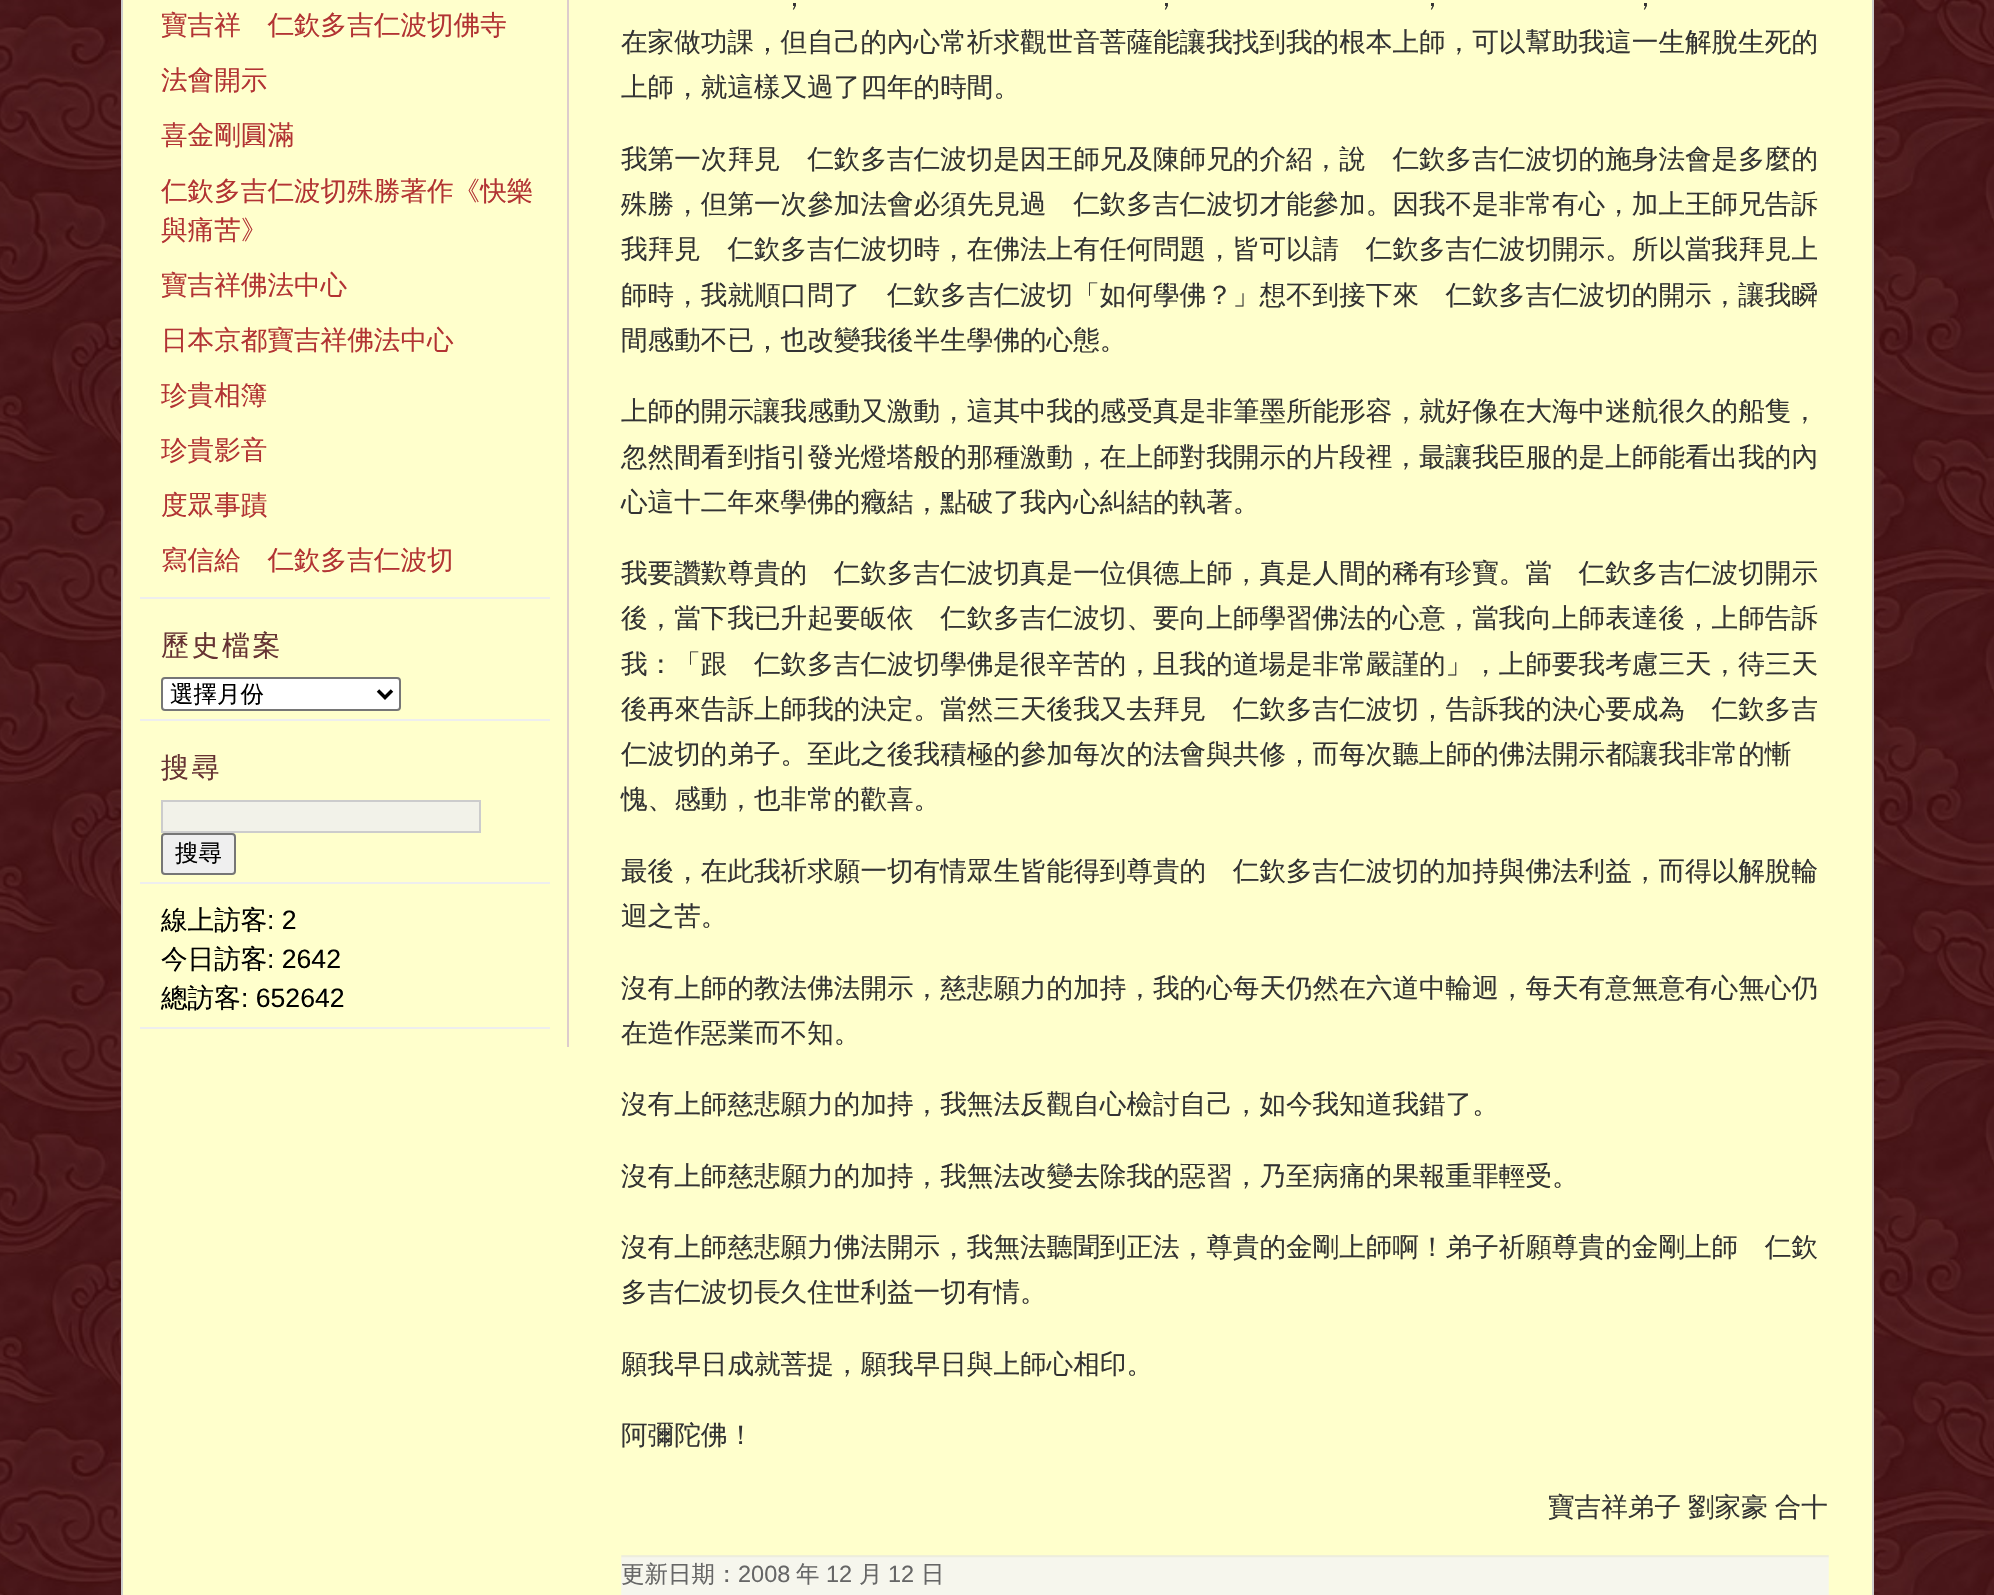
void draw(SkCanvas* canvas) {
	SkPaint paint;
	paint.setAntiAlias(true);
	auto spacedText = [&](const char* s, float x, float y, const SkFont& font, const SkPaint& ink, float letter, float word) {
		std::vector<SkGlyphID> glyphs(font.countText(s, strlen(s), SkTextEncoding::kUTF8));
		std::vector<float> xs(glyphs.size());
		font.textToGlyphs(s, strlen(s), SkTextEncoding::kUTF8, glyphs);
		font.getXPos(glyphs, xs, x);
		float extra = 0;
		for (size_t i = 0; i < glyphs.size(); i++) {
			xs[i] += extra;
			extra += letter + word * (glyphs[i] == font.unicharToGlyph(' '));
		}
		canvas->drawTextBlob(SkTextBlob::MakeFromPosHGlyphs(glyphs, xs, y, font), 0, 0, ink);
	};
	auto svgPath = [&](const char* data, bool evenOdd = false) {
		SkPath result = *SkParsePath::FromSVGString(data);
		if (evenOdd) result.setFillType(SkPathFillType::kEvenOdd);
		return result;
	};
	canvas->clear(0xffffffff);
	canvas->drawImageRect(SkImages::DeferredFromEncodedData(SkData::MakeFromFileName("img1.png")), SkRect::MakeXYWH(0, 0, 1994, 1595), SkSamplingOptions());
	paint.setColor(0xffffffcc);
	canvas->drawRect(SkRect::MakeXYWH(122, -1, 1751, 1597), paint);
	paint.setStroke(true);
	paint.setStrokeWidth(2);
	paint.setColor(0xffcccccc);
	canvas->drawRect(SkRect::MakeXYWH(122, -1, 1751, 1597), paint);
	paint.setStroke(false);
	paint.setColor(0xffddcccc);
	canvas->drawRect(SkRect::MakeXYWH(567, 0, 2, 1047), paint);
	paint.setColor(0xffeeeeee);
	canvas->drawRect(SkRect::MakeXYWH(140, 597, 410, 2), paint);
	SkFont f1(fontMgr->matchFamilyStyle("WenQuanYi Zen Hei", SkFontStyle(500, SkFontStyle::kNormal_Width, SkFontStyle::kUpright_Slant)), 26.6);
	f1.setSubpixel(true);
	paint.setColor(0xffb23333);
	canvas->drawString("寶吉祥　仁欽多吉仁波切佛寺", 161, 34, f1, paint);
	canvas->drawString("法會開示", 161, 89, f1, paint);
	canvas->drawString("喜金剛圓滿", 161, 144, f1, paint);
	canvas->drawString("仁欽多吉仁波切殊勝著作《快樂", 161, 200, f1, paint);
	canvas->drawString("與痛苦》", 161, 239, f1, paint);
	canvas->drawString("寶吉祥佛法中心", 161, 294, f1, paint);
	canvas->drawString("日本京都寶吉祥佛法中心", 161, 349, f1, paint);
	canvas->drawString("珍貴相簿", 161, 404, f1, paint);
	canvas->drawString("珍貴影音", 161, 459, f1, paint);
	canvas->drawString("度眾事蹟", 161, 514, f1, paint);
	canvas->drawString("寫信給　仁欽多吉仁波切", 161, 569, f1, paint);
	paint.setColor(0xffeeeeee);
	canvas->drawRect(SkRect::MakeXYWH(140, 719, 410, 2), paint);
	SkFont f2(fontMgr->matchFamilyStyle("WenQuanYi Zen Hei", SkFontStyle(500, SkFontStyle::kNormal_Width, SkFontStyle::kUpright_Slant)), 28);
	f2.setSubpixel(true);
	paint.setColor(0xff663333);
	spacedText("歷史檔案", 161, 655, f2, paint, 2.5, 0);
	paint.setColor(0xffffffff);
	canvas->drawRoundRect(SkRect::MakeXYWH(162, 678, 238, 32), 3, 3, paint);
	paint.setStroke(true);
	paint.setColor(0xff767676);
	canvas->drawRoundRect(SkRect::MakeXYWH(162, 678, 238, 32), 3, 3, paint);
	paint.setStrokeWidth(3.5);
	paint.setColor(0xff000000);
	canvas->drawPath(svgPath("M378 690.5L385 697.5L392 690.5"), paint);
	SkFont f3(fontMgr->matchFamilyStyle("WenQuanYi Zen Hei", SkFontStyle(500, SkFontStyle::kNormal_Width, SkFontStyle::kUpright_Slant)), 23.5);
	f3.setSubpixel(true);
	paint.setStroke(false);
	canvas->drawString("選擇月份", 170, 702, f3, paint);
	paint.setColor(0xffeeeeee);
	canvas->drawRect(SkRect::MakeXYWH(140, 882, 410, 2), paint);
	paint.setColor(0xff663333);
	spacedText("搜尋", 161, 777, f2, paint, 2.5, 0);
	paint.setColor(0xfff2f2e9);
	canvas->drawRect(SkRect::MakeXYWH(162, 801, 318, 31), paint);
	paint.setStroke(true);
	paint.setStrokeWidth(2);
	paint.setColor(0xffcccccc);
	canvas->drawRect(SkRect::MakeXYWH(162, 801, 318, 31), paint);
	paint.setStroke(false);
	paint.setColor(0xffefefef);
	canvas->drawRoundRect(SkRect::MakeXYWH(162, 834, 73, 40), 3, 3, paint);
	paint.setStroke(true);
	paint.setColor(0xff767676);
	canvas->drawRoundRect(SkRect::MakeXYWH(162, 834, 73, 40), 3, 3, paint);
	paint.setStroke(false);
	paint.setColor(0xff000000);
	canvas->drawString("搜尋", 175, 861, f3, paint);
	paint.setColor(0xffeeeeee);
	canvas->drawRect(SkRect::MakeXYWH(140, 1027, 410, 2), paint);
	paint.setColor(0xff000000);
	canvas->drawString("線上訪客", 161, 929, f1, paint);
	SkFont f4(fontMgr->matchFamilyStyle("Liberation Sans", SkFontStyle::Normal()), 26.6);
	f4.setSubpixel(true);
	canvas->drawString(": 2", 267, 929, f4, paint);
	canvas->drawString("今日訪客", 161, 968, f1, paint);
	canvas->drawString(": 2642", 267, 968, f4, paint);
	canvas->drawString("總訪客", 161, 1007, f1, paint);
	canvas->drawString(": 652642", 241, 1007, f4, paint);
	paint.setColor(0xff333333);
	canvas->drawString("，", 781, 6, f1, paint);
	canvas->drawString("，", 1153, 6, f1, paint);
	canvas->drawString("，", 1419, 6, f1, paint);
	canvas->drawString("，", 1632, 6, f1, paint);
	canvas->drawString("在家做功課，但自己的內心常祈求觀世音菩薩能讓我找到我的根本上師，可以幫助我這一生解脫生死的", 621, 51, f1, paint);
	canvas->drawString("上師，就這樣又過了四年的時間。", 621, 96, f1, paint);
	canvas->drawString("我第一次拜見　仁欽多吉仁波切是因王師兄及陳師兄的介紹，說　仁欽多吉仁波切的施身法會是多麼的", 621, 168, f1, paint);
	canvas->drawString("殊勝，但第一次參加法會必須先見過　仁欽多吉仁波切才能參加。因我不是非常有心，加上王師兄告訴", 621, 213, f1, paint);
	canvas->drawString("我拜見　仁欽多吉仁波切時，在佛法上有任何問題，皆可以請　仁欽多吉仁波切開示。所以當我拜見上", 621, 258, f1, paint);
	canvas->drawString("師時，我就順口問了　仁欽多吉仁波切「如何學佛？」想不到接下來　仁欽多吉仁波切的開示，讓我瞬", 621, 304, f1, paint);
	canvas->drawString("間感動不已，也改變我後半生學佛的心態。", 621, 349, f1, paint);
	canvas->drawString("上師的開示讓我感動又激動，這其中我的感受真是非筆墨所能形容，就好像在大海中迷航很久的船隻，", 621, 420, f1, paint);
	canvas->drawString("忽然間看到指引發光燈塔般的那種激動，在上師對我開示的片段裡，最讓我臣服的是上師能看出我的內", 621, 466, f1, paint);
	canvas->drawString("心這十二年來學佛的癥結，點破了我內心糾結的執著。", 621, 511, f1, paint);
	canvas->drawString("我要讚歎尊貴的　仁欽多吉仁波切真是一位俱德上師，真是人間的稀有珍寶。當　仁欽多吉仁波切開示", 621, 582, f1, paint);
	canvas->drawString("後，當下我已升起要皈依　仁欽多吉仁波切、要向上師學習佛法的心意，當我向上師表達後，上師告訴", 621, 627, f1, paint);
	canvas->drawString("我：「跟　仁欽多吉仁波切學佛是很辛苦的，且我的道場是非常嚴謹的」，上師要我考慮三天，待三天", 621, 673, f1, paint);
	canvas->drawString("後再來告訴上師我的決定。當然三天後我又去拜見　仁欽多吉仁波切，告訴我的決心要成為　仁欽多吉", 621, 718, f1, paint);
	canvas->drawString("仁波切的弟子。至此之後我積極的參加每次的法會與共修，而每次聽上師的佛法開示都讓我非常的慚", 621, 763, f1, paint);
	canvas->drawString("愧、感動，也非常的歡喜。", 621, 808, f1, paint);
	canvas->drawString("最後，在此我祈求願一切有情眾生皆能得到尊貴的　仁欽多吉仁波切的加持與佛法利益，而得以解脫輪", 621, 880, f1, paint);
	canvas->drawString("迴之苦。", 621, 925, f1, paint);
	canvas->drawString("沒有上師的教法佛法開示，慈悲願力的加持，我的心每天仍然在六道中輪迥，每天有意無意有心無心仍", 621, 997, f1, paint);
	canvas->drawString("在造作惡業而不知。", 621, 1042, f1, paint);
	canvas->drawString("沒有上師慈悲願力的加持，我無法反觀自心檢討自己，如今我知道我錯了。", 621, 1113, f1, paint);
	canvas->drawString("沒有上師慈悲願力的加持，我無法改變去除我的惡習，乃至病痛的果報重罪輕受。", 621, 1185, f1, paint);
	canvas->drawString("沒有上師慈悲願力佛法開示，我無法聽聞到正法，尊貴的金剛上師啊！弟子祈願尊貴的金剛上師　仁欽", 621, 1256, f1, paint);
	canvas->drawString("多吉仁波切長久住世利益一切有情。", 621, 1301, f1, paint);
	canvas->drawString("願我早日成就菩提，願我早日與上師心相印。", 621, 1373, f1, paint);
	canvas->drawString("阿彌陀佛！", 621, 1444, f1, paint);
	spacedText("寶吉祥弟子 劉家豪 合十", 1548, 1516, f1, paint, 0, -1);
	canvas->drawImageRect(SkImages::DeferredFromEncodedData(SkData::MakeFromFileName("img2.png")), SkRect::MakeXYWH(621, 1555, 1208, 40), SkSamplingOptions());
	paint.setColor(0xff666666);
	canvas->drawString("更新日期：", 621, 1582, f3, paint);
	SkFont f5(fontMgr->matchFamilyStyle("Liberation Sans", SkFontStyle::Normal()), 23.5);
	f5.setSubpixel(true);
	canvas->drawString("2008", 738, 1582, f5, paint);
	canvas->drawString("年", 796, 1582, f3, paint);
	canvas->drawString("12", 826, 1582, f5, paint);
	canvas->drawString("月", 859, 1582, f3, paint);
	canvas->drawString("12", 888, 1582, f5, paint);
	canvas->drawString("日", 921, 1582, f3, paint);
}
